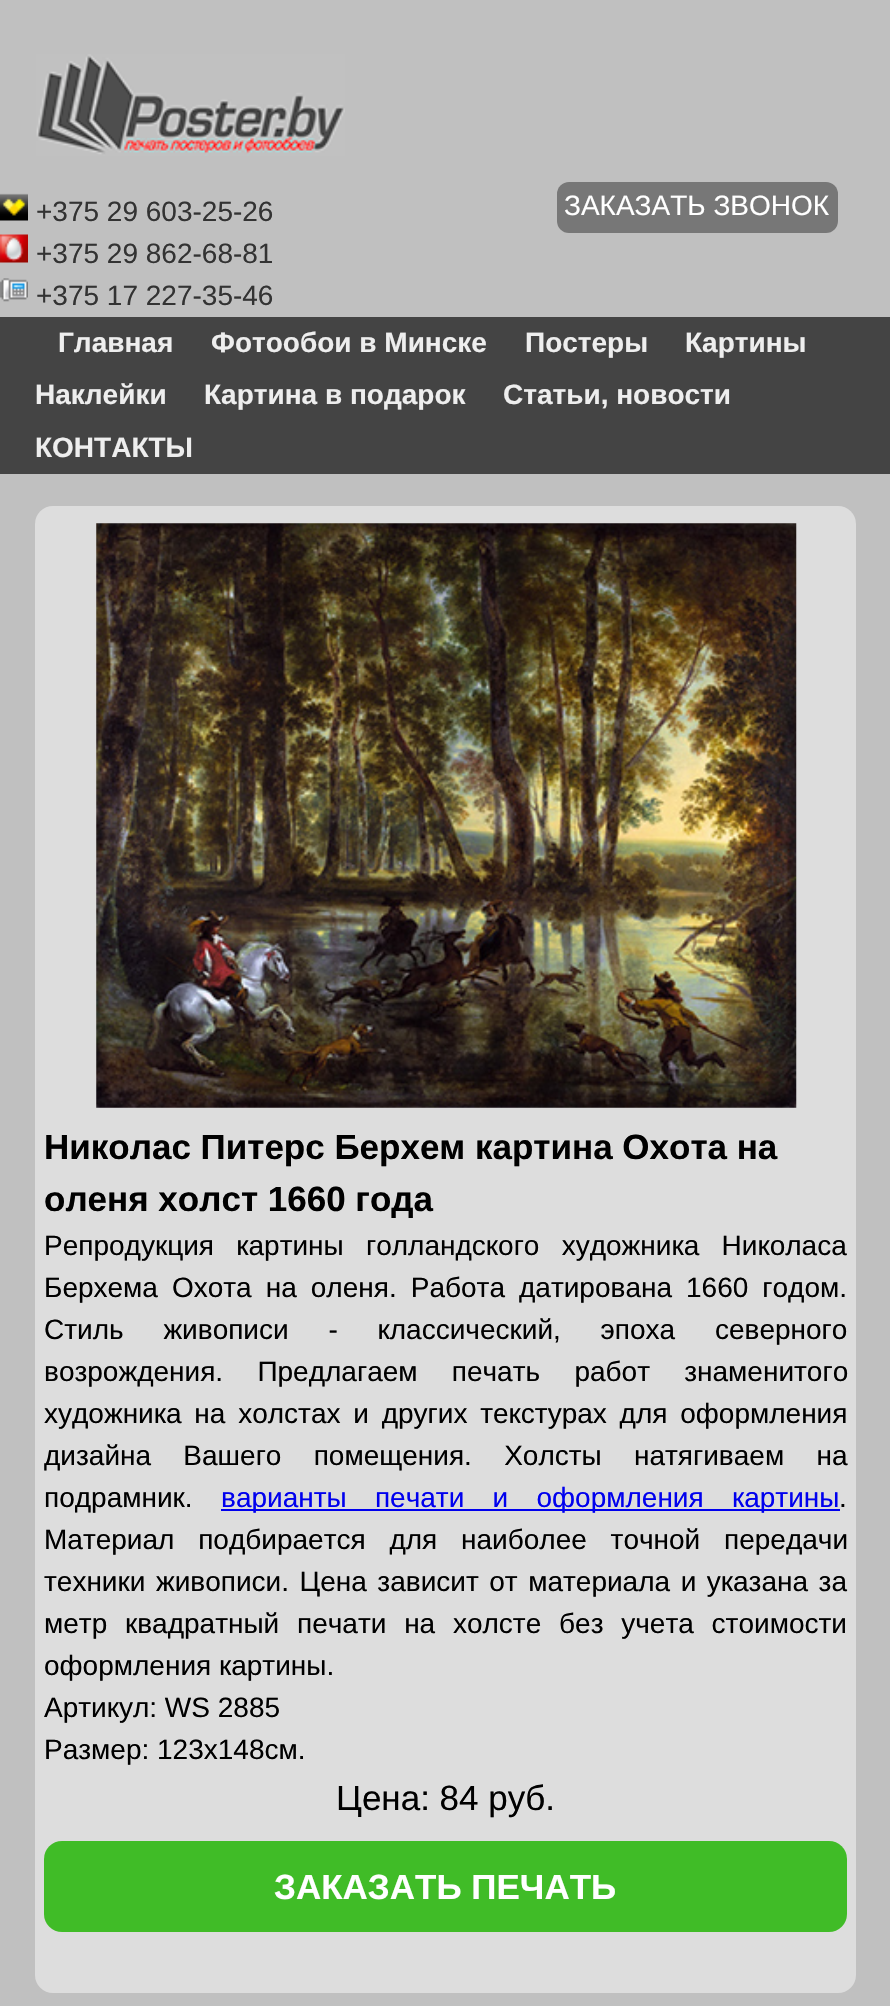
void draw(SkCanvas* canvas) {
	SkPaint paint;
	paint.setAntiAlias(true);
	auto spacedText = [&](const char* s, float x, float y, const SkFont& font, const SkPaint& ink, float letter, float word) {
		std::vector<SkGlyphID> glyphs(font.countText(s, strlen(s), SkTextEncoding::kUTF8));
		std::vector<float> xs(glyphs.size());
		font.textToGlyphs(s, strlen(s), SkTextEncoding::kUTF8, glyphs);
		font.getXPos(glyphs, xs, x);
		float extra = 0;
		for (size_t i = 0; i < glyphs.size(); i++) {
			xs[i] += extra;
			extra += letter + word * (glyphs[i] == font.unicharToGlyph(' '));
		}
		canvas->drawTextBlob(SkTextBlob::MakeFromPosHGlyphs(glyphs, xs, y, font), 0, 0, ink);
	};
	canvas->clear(0xffc0c0c0);
	canvas->drawImageRect(SkImages::DeferredFromEncodedData(SkData::MakeFromFileName("img1.png")), SkRect::MakeXYWH(36, 54, 309, 102), SkSamplingOptions());
	canvas->drawImageRect(SkImages::DeferredFromEncodedData(SkData::MakeFromFileName("img2.png")), SkRect::MakeXYWH(0, 193, 28, 28), SkSamplingOptions());
	SkFont f1(fontMgr->matchFamilyStyle("Liberation Sans", SkFontStyle::Normal()), 28);
	f1.setSubpixel(true);
	paint.setColor(0xff333333);
	canvas->drawString("+375 29 603-25-26", 36, 221, f1, paint);
	canvas->drawImageRect(SkImages::DeferredFromEncodedData(SkData::MakeFromFileName("img3.png")), SkRect::MakeXYWH(0, 234, 28, 29), SkSamplingOptions());
	canvas->drawString("+375 29 862-68-81", 36, 263, f1, paint);
	canvas->drawImageRect(SkImages::DeferredFromEncodedData(SkData::MakeFromFileName("img4.png")), SkRect::MakeXYWH(0, 278, 28, 24), SkSamplingOptions());
	canvas->drawString("+375 17 227-35-46", 36, 305, f1, paint);
	paint.setColor(0xff777777);
	canvas->drawRoundRect(SkRect::MakeXYWH(557, 182, 281, 51), 12, 12, paint);
	paint.setColor(0xffffffff);
	canvas->drawString("ЗАКАЗАТЬ ЗВОНОК", 564, 215, f1, paint);
	paint.setColor(0xff444444);
	canvas->drawRect(SkRect::MakeXYWH(0, 317, 890, 157), paint);
	SkFont f2(fontMgr->matchFamilyStyle("Liberation Sans", SkFontStyle::Bold()), 28);
	f2.setSubpixel(true);
	paint.setColor(0xffeeeeee);
	canvas->drawString("Главная", 58, 352, f2, paint);
	canvas->drawString("Фотообои в Минске", 211, 352, f2, paint);
	canvas->drawString("Постеры", 525, 352, f2, paint);
	canvas->drawString("Картины", 685, 352, f2, paint);
	canvas->drawString("Наклейки", 35, 404, f2, paint);
	canvas->drawString("Картина в подарок", 204, 404, f2, paint);
	canvas->drawString("Статьи, новости", 503, 404, f2, paint);
	canvas->drawString("КОНТАКТЫ", 35, 457, f2, paint);
	paint.setColor(0xffdddddd);
	canvas->drawRoundRect(SkRect::MakeXYWH(35, 506, 821, 1487), 18, 18, paint);
	canvas->drawImageRect(SkImages::DeferredFromEncodedData(SkData::MakeFromFileName("img5.png")), SkRect::MakeXYWH(96, 523, 701, 585), SkSamplingOptions());
	SkFont f3(fontMgr->matchFamilyStyle("Liberation Sans", SkFontStyle::Bold()), 35);
	f3.setSubpixel(true);
	paint.setColor(0xff000000);
	canvas->drawString("Николас Питерс Берхем картина Охота на", 44, 1159, f3, paint);
	canvas->drawString("оленя холст 1660 года", 44, 1211, f3, paint);
	spacedText("Репродукция картины голландского художника Николаса", 44, 1255, f1, paint, 0, 14.5);
	spacedText("Берхема Охота на оленя. Работа датирована 1660 годом.", 44, 1297, f1, paint, 0, 6.25);
	spacedText("Стиль живописи - классический, эпоха северного", 44, 1339, f1, paint, 0, 32);
	spacedText("возрождения. Предлагаем печать работ знаменитого", 44, 1381, f1, paint, 0, 26.5);
	spacedText("художника на холстах и других текстурах для оформления", 44, 1423, f1, paint, 0, 5);
	spacedText("дизайна Вашего помещения. Холсты натягиваем на", 44, 1465, f1, paint, 0, 24.5);
	canvas->drawString("подрамник.", 44, 1507, f1, paint);
	paint.setColor(0xff0000ee);
	canvas->drawRect(SkRect::MakeXYWH(221, 1509, 619, 2), paint);
	spacedText("варианты печати и оформления картины", 221, 1507, f1, paint, 0, 20.5);
	paint.setColor(0xff000000);
	canvas->drawString(".", 839, 1507, f1, paint);
	spacedText("Материал подбирается для наиболее точной передачи", 44, 1549, f1, paint, 0, 16);
	spacedText("техники живописи. Цена зависит от материала и указана за", 44, 1591, f1, paint, 0, 2.75);
	spacedText("метр квадратный печати на холсте без учета стоимости", 44, 1633, f1, paint, 0, 10);
	canvas->drawString("оформления картины.", 44, 1675, f1, paint);
	canvas->drawString("Артикул: WS 2885", 44, 1717, f1, paint);
	canvas->drawString("Размер: 123x148см.", 44, 1759, f1, paint);
	SkFont f4(fontMgr->matchFamilyStyle("Liberation Sans", SkFontStyle::Normal()), 35);
	f4.setSubpixel(true);
	canvas->drawString("Цена: 84 руб.", 336, 1810, f4, paint);
	paint.setColor(0xff40bc27);
	canvas->drawRoundRect(SkRect::MakeXYWH(44, 1841, 803, 91), 18, 18, paint);
	paint.setColor(0xffffffff);
	canvas->drawString("ЗАКАЗАТЬ ПЕЧАТЬ", 274, 1899, f3, paint);
}
